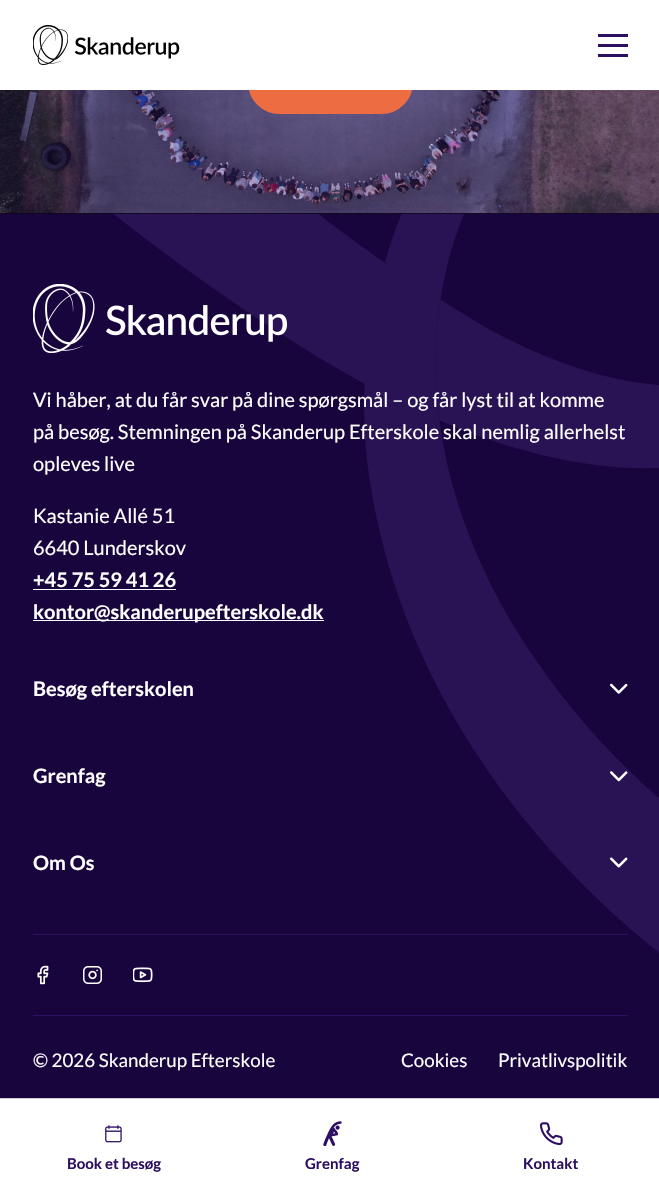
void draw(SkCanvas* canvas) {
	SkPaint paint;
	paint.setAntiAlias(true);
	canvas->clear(0xff0d051d);
	canvas->drawImageRect(SkImages::DeferredFromEncodedData(SkData::MakeFromFileName("img1.png")), SkRect::MakeXYWH(0, 90, 659, 124), SkSamplingOptions());
	paint.setColor(0xffee6c42);
	canvas->drawRoundRect(SkRect::MakeXYWH(249.5, 52.5, 162, 60), 30, 30, paint);
	paint.setStroke(true);
	paint.setStrokeWidth(3);
	canvas->drawRoundRect(SkRect::MakeXYWH(249.5, 52.5, 162, 60), 30, 30, paint);
	paint.setStroke(false);
	paint.setColor(0xff19053e);
	canvas->drawRect(SkRect::MakeXYWH(0, 214, 659, 884), paint);
	canvas->drawImageRect(SkImages::DeferredFromEncodedData(SkData::MakeFromFileName("img2.png")), SkRect::MakeXYWH(114, 214, 545, 739), SkSamplingOptions());
	canvas->drawImageRect(SkImages::DeferredFromEncodedData(SkData::MakeFromFileName("img3.png")), SkRect::MakeXYWH(33, 284, 255, 69), SkSamplingOptions());
	SkFont f1(fontMgr->matchFamilyStyle("Lato", SkFontStyle::Normal()), 20);
	f1.setSubpixel(true);
	paint.setColor(0xffffffff);
	canvas->drawString("Vi håber, at du får svar på dine spørgsmål – og får lyst til at komme", 33, 407, f1, paint);
	canvas->drawString("på besøg. Stemningen på Skanderup Efterskole skal nemlig allerhelst", 33, 439, f1, paint);
	canvas->drawString("opleves live", 33, 471, f1, paint);
	canvas->drawString("Kastanie Allé 51", 33, 523, f1, paint);
	canvas->drawString("6640 Lunderskov", 33, 555, f1, paint);
	SkFont f2(fontMgr->matchFamilyStyle("Lato", SkFontStyle::Bold()), 20);
	f2.setSubpixel(true);
	canvas->drawString("+45 75 59 41 26", 33, 587, f2, paint);
	canvas->drawRect(SkRect::MakeXYWH(33, 589, 143, 1), paint);
	canvas->drawRect(SkRect::MakeXYWH(33, 620, 291, 1), paint);
	canvas->drawString("kontor@skanderupefterskole.dk", 33, 619, f2, paint);
	canvas->drawString("Besøg efterskolen", 33, 696, f2, paint);
	canvas->drawImageRect(SkImages::DeferredFromEncodedData(SkData::MakeFromFileName("img4.png")), SkRect::MakeXYWH(610, 683, 18, 11), SkSamplingOptions());
	canvas->drawString("Grenfag", 33, 783, f2, paint);
	canvas->drawImageRect(SkImages::DeferredFromEncodedData(SkData::MakeFromFileName("img5.png")), SkRect::MakeXYWH(610, 771, 18, 11), SkSamplingOptions());
	canvas->drawString("Om Os", 33, 870, f2, paint);
	canvas->drawImageRect(SkImages::DeferredFromEncodedData(SkData::MakeFromFileName("img6.png")), SkRect::MakeXYWH(610, 857, 18, 11), SkSamplingOptions());
	paint.setColor(0xff2c0f61);
	canvas->drawRect(SkRect::MakeXYWH(33, 934, 595, 1), paint);
	canvas->drawImageRect(SkImages::DeferredFromEncodedData(SkData::MakeFromFileName("img7.png")), SkRect::MakeXYWH(37, 965, 12, 20), SkSamplingOptions());
	canvas->drawImageRect(SkImages::DeferredFromEncodedData(SkData::MakeFromFileName("img8.png")), SkRect::MakeXYWH(83, 966, 19, 18), SkSamplingOptions());
	canvas->drawImageRect(SkImages::DeferredFromEncodedData(SkData::MakeFromFileName("img9.png")), SkRect::MakeXYWH(133, 967, 20, 16), SkSamplingOptions());
	canvas->drawRect(SkRect::MakeXYWH(33, 1015, 595, 1), paint);
	SkFont f3(fontMgr->matchFamilyStyle("Lato", SkFontStyle::Normal()), 18.75);
	f3.setSubpixel(true);
	paint.setColor(0xffffffff);
	canvas->drawString("© 2026 Skanderup Efterskole", 33, 1067, f3, paint);
	canvas->drawString("Cookies", 401, 1067, f3, paint);
	canvas->drawString("Privatlivspolitik", 498, 1067, f3, paint);
	canvas->drawRect(SkRect::MakeXYWH(0, 0, 659, 90), paint);
	canvas->drawImageRect(SkImages::DeferredFromEncodedData(SkData::MakeFromFileName("img10.png")), SkRect::MakeXYWH(33, 25, 147, 40), SkSamplingOptions());
	paint.setColor(0xff2c0f61);
	canvas->drawRect(SkRect::MakeXYWH(598, 34, 30, 3), paint);
	canvas->drawRect(SkRect::MakeXYWH(598, 44, 30, 3), paint);
	canvas->drawRect(SkRect::MakeXYWH(598, 54, 30, 3), paint);
	paint.setColor(0xffffffff);
	canvas->drawRect(SkRect::MakeXYWH(0, 1099, 659, 98), paint);
	paint.setColor(0xffcccccc);
	canvas->drawRect(SkRect::MakeXYWH(0, 1098, 659, 1), paint);
	canvas->drawImageRect(SkImages::DeferredFromEncodedData(SkData::MakeFromFileName("img11.png")), SkRect::MakeXYWH(105, 1125, 17, 18), SkSamplingOptions());
	SkFont f4(fontMgr->matchFamilyStyle("Lato", SkFontStyle::Bold()), 15);
	f4.setSubpixel(true);
	paint.setColor(0xff2c0f61);
	canvas->drawString("Book et besøg", 67, 1169, f4, paint);
	canvas->drawImageRect(SkImages::DeferredFromEncodedData(SkData::MakeFromFileName("img12.png")), SkRect::MakeXYWH(323, 1121, 19, 25), SkSamplingOptions());
	canvas->drawString("Grenfag", 305, 1169, f4, paint);
	canvas->drawImageRect(SkImages::DeferredFromEncodedData(SkData::MakeFromFileName("img13.png")), SkRect::MakeXYWH(539, 1122, 24, 24), SkSamplingOptions());
	canvas->drawString("Kontakt", 523, 1169, f4, paint);
}
